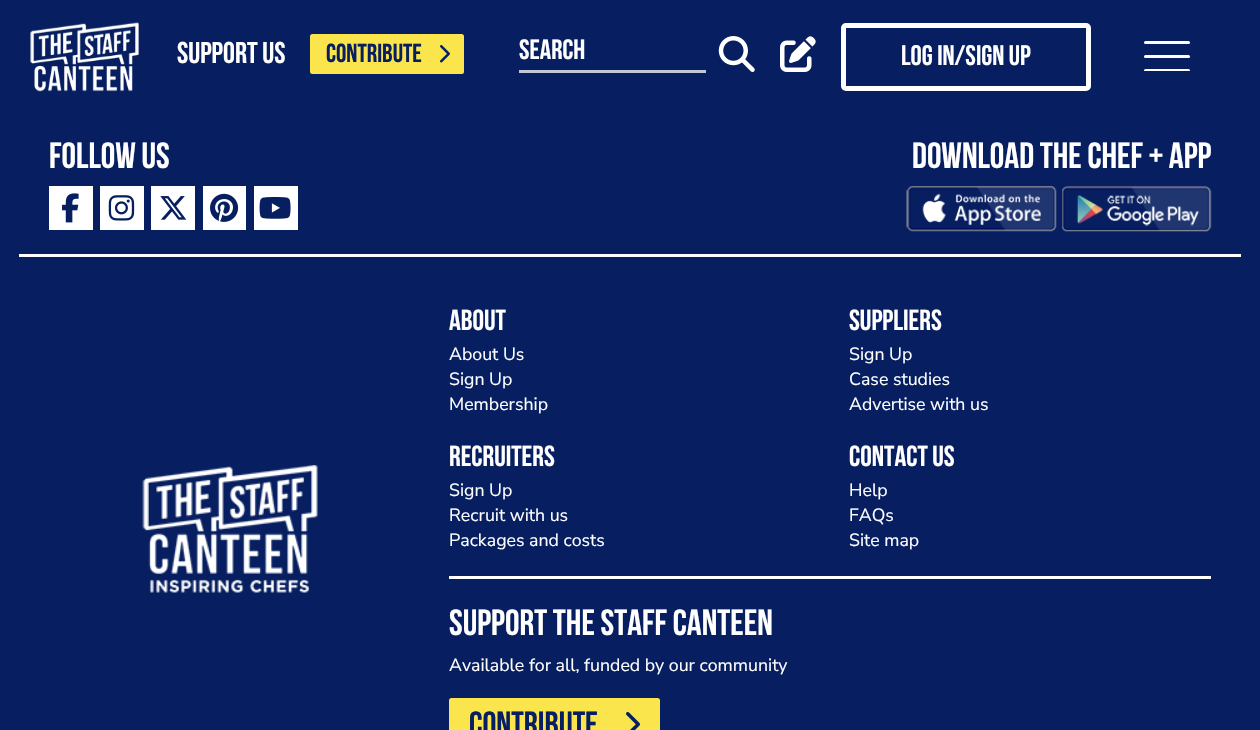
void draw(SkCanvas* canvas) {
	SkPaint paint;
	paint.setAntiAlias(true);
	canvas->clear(0xff071f60);
	canvas->drawImageRect(SkImages::DeferredFromEncodedData(SkData::MakeFromFileName("img1.png")), SkRect::MakeXYWH(30, 22, 109, 70), SkSamplingOptions());
	SkFont f1(fontMgr->matchFamilyStyle("Bebas Neue", SkFontStyle::Bold()), 30);
	f1.setSubpixel(true);
	paint.setColor(0xffffffff);
	canvas->drawString("SUPPORT US", 177, 63, f1, paint);
	paint.setColor(0xfffae54d);
	canvas->drawRoundRect(SkRect::MakeXYWH(310, 34, 154, 40), 2.5, 2.5, paint);
	SkFont f2(fontMgr->matchFamilyStyle("Bebas Neue", SkFontStyle::Bold()), 26);
	f2.setSubpixel(true);
	paint.setColor(0xff071f60);
	canvas->drawString("CONTRIBUTE", 326, 62, f2, paint);
	canvas->drawImageRect(SkImages::DeferredFromEncodedData(SkData::MakeFromFileName("img2.png")), SkRect::MakeXYWH(440, 45, 10, 18), SkSamplingOptions());
	paint.setColor(0xffc1c7d7);
	canvas->drawRect(SkRect::MakeXYWH(519, 70, 187, 3), paint);
	SkFont f3(fontMgr->matchFamilyStyle("Bebas Neue", SkFontStyle::Bold()), 28);
	f3.setSubpixel(true);
	paint.setColor(0xffffffff);
	canvas->drawString("search", 519, 59, f3, paint);
	canvas->drawImageRect(SkImages::DeferredFromEncodedData(SkData::MakeFromFileName("img3.png")), SkRect::MakeXYWH(718, 36, 37, 36), SkSamplingOptions());
	canvas->drawImageRect(SkImages::DeferredFromEncodedData(SkData::MakeFromFileName("img4.png")), SkRect::MakeXYWH(780, 36, 36, 36), SkSamplingOptions());
	paint.setStroke(true);
	paint.setStrokeWidth(5);
	canvas->drawRoundRect(SkRect::MakeXYWH(843.5, 25.5, 245, 63), 2.5, 2.5, paint);
	SkFont f4(fontMgr->matchFamilyStyle("Bebas Neue", SkFontStyle::Bold()), 28.25);
	f4.setSubpixel(true);
	paint.setStroke(false);
	canvas->drawString("Log in/Sign up", 901, 65, f4, paint);
	canvas->drawRoundRect(SkRect::MakeXYWH(1144, 41, 46, 3), 1.5, 1.5, paint);
	canvas->drawRoundRect(SkRect::MakeXYWH(1144, 55, 46, 3), 1.5, 1.5, paint);
	canvas->save();
	canvas->clipRect(SkRect::MakeXYWH(1144, 41, 46, 30));
	canvas->drawRoundRect(SkRect::MakeXYWH(1144, 69, 46, 3), 1.5, 1.5, paint);
	canvas->restore();
	SkFont f5(fontMgr->matchFamilyStyle("Bebas Neue", SkFontStyle::Bold()), 36.5);
	f5.setSubpixel(true);
	canvas->drawString("Follow Us", 49, 168, f5, paint);
	canvas->drawRect(SkRect::MakeXYWH(49, 186, 44, 44), paint);
	canvas->drawImageRect(SkImages::DeferredFromEncodedData(SkData::MakeFromFileName("img5.png")), SkRect::MakeXYWH(62, 193, 17, 30), SkSamplingOptions());
	canvas->drawRect(SkRect::MakeXYWH(100, 186, 44, 44), paint);
	canvas->drawImageRect(SkImages::DeferredFromEncodedData(SkData::MakeFromFileName("img6.png")), SkRect::MakeXYWH(108, 195, 27, 26), SkSamplingOptions());
	canvas->drawRect(SkRect::MakeXYWH(151, 186, 44, 44), paint);
	canvas->drawImageRect(SkImages::DeferredFromEncodedData(SkData::MakeFromFileName("img7.png")), SkRect::MakeXYWH(160, 196, 27, 24), SkSamplingOptions());
	canvas->drawRect(SkRect::MakeXYWH(203, 186, 43, 44), paint);
	canvas->drawImageRect(SkImages::DeferredFromEncodedData(SkData::MakeFromFileName("img8.png")), SkRect::MakeXYWH(210, 193, 29, 29), SkSamplingOptions());
	canvas->drawRect(SkRect::MakeXYWH(254, 186, 44, 44), paint);
	canvas->drawImageRect(SkImages::DeferredFromEncodedData(SkData::MakeFromFileName("img9.png")), SkRect::MakeXYWH(259, 197, 32, 22), SkSamplingOptions());
	canvas->drawString("Download the Chef + app", 912, 168, f5, paint);
	canvas->drawImageRect(SkImages::DeferredFromEncodedData(SkData::MakeFromFileName("img10.png")), SkRect::MakeXYWH(906, 186, 151, 46), SkSamplingOptions());
	canvas->drawImageRect(SkImages::DeferredFromEncodedData(SkData::MakeFromFileName("img11.png")), SkRect::MakeXYWH(1062, 186, 150, 46), SkSamplingOptions());
	canvas->drawRect(SkRect::MakeXYWH(19, 254, 1222, 3), paint);
	canvas->drawImageRect(SkImages::DeferredFromEncodedData(SkData::MakeFromFileName("img12.png")), SkRect::MakeXYWH(142, 465, 176, 128), SkSamplingOptions());
	SkFont f6(fontMgr->matchFamilyStyle("Bebas Neue", SkFontStyle::Bold()), 29);
	f6.setSubpixel(true);
	canvas->drawString("About", 449, 330, f6, paint);
	SkFont f7(fontMgr->matchFamilyStyle("Nunito Sans", SkFontStyle(200, SkFontStyle::kNormal_Width, SkFontStyle::kUpright_Slant)), 17.75);
	f7.setSubpixel(true);
	canvas->drawString("About Us", 449, 360, f7, paint);
	canvas->drawString("Sign Up", 449, 385, f7, paint);
	canvas->drawString("Membership", 449, 410, f7, paint);
	canvas->drawString("Suppliers", 849, 330, f6, paint);
	canvas->drawString("Sign Up", 849, 360, f7, paint);
	canvas->drawString("Case studies", 849, 385, f7, paint);
	canvas->drawString("Advertise with us", 849, 410, f7, paint);
	canvas->drawString("Recruiters", 449, 466, f6, paint);
	canvas->drawString("Sign Up", 449, 496, f7, paint);
	canvas->drawString("Recruit with us", 449, 521, f7, paint);
	canvas->drawString("Packages and costs", 449, 546, f7, paint);
	canvas->drawString("Contact Us", 849, 466, f6, paint);
	canvas->drawString("Help", 849, 496, f7, paint);
	canvas->drawString("FAQs", 849, 521, f7, paint);
	canvas->drawString("Site map", 849, 546, f7, paint);
	canvas->drawRect(SkRect::MakeXYWH(449, 576, 762, 3), paint);
	canvas->drawString("SUPPORT THE STAFF CANTEEN", 449, 635, f5, paint);
	canvas->drawString("Available for all, funded by our community", 449, 671, f7, paint);
	paint.setColor(0xfffae54d);
	canvas->drawRoundRect(SkRect::MakeXYWH(449, 698, 211, 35), 2.5, 2.5, paint);
	SkFont f8(fontMgr->matchFamilyStyle("Bebas Neue", SkFontStyle::Bold()), 35);
	f8.setSubpixel(true);
	paint.setColor(0xff071f60);
	canvas->drawString("CONTRIBUTE", 469, 736, f8, paint);
	canvas->drawImageRect(SkImages::DeferredFromEncodedData(SkData::MakeFromFileName("img13.png")), SkRect::MakeXYWH(626, 712, 14, 18), SkSamplingOptions());
}
